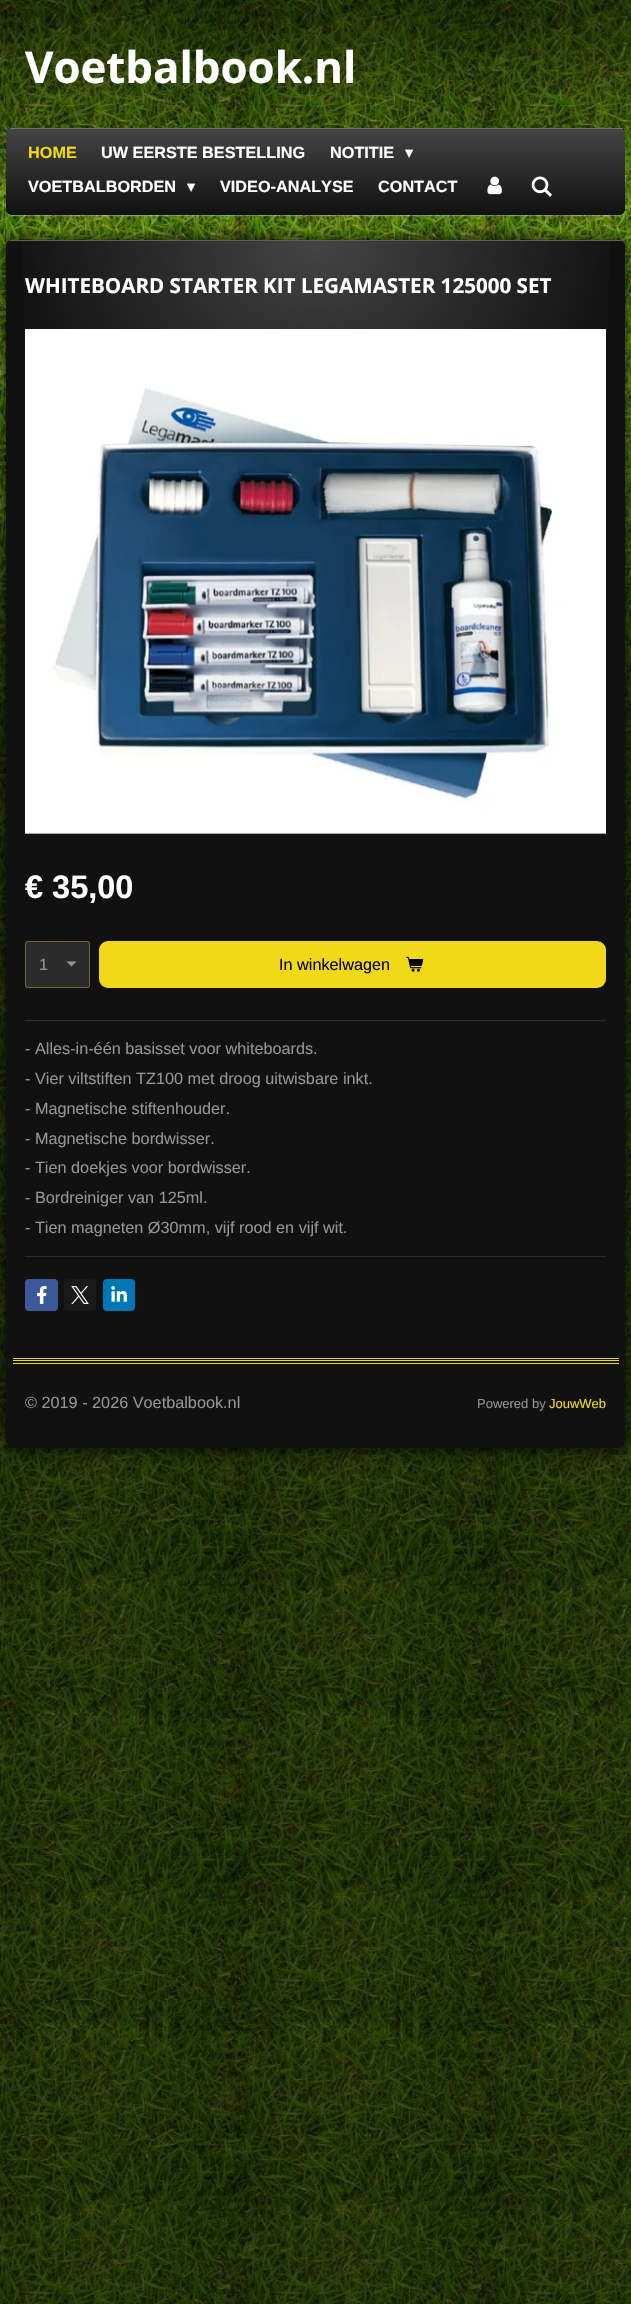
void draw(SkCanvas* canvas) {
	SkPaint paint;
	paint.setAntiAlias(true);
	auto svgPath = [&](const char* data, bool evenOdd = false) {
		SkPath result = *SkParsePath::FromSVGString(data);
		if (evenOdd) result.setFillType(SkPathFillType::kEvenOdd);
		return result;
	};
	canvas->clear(0xffffffff);
	canvas->drawImageRect(SkImages::DeferredFromEncodedData(SkData::MakeFromFileName("img1.png")), SkRect::MakeXYWH(0, 0, 631, 2304), SkSamplingOptions());
	paint.setColor(0x99000000);
	canvas->drawRect(SkRect::MakeXYWH(0, 0, 631, 25), paint);
	SkFont f1(fontMgr->matchFamilyStyle("Open Sans", SkFontStyle::Bold()), 43.75);
	f1.setSubpixel(true);
	paint.setColor(0xffffffff);
	canvas->drawString("Voetbalbook.nl", 25, 83, f1, paint);
	paint.setColor(0x4dffffff);
	paint.setMaskFilter(SkMaskFilter::MakeBlur(kNormal_SkBlurStyle, 0.5));
	canvas->drawRoundRect(SkRect::MakeXYWH(6, 129, 619, 87), 6, 6, paint);
	paint.setMaskFilter(nullptr);
	paint.setColor(0xff111111);
	canvas->drawRoundRect(SkRect::MakeXYWH(6, 128, 619, 87), 6, 6, paint);
	canvas->save();
	canvas->clipPath(svgPath("M12 128H619C622.5 128 625 130.5 625 134V209C625 212.5 622.5 215 619 215H12C8.5 215 6 212.5 6 209V134C6 130.5 8.5 128 12 128Z"), true);
	{
		const SkColor colors[] = {0xff111111, 0xff444444};
		const float stops[] = {0, 1};
		const SkPoint ends[] = {{316, 129}, {316, 43}};
		paint.setShader(SkGradientShader::MakeLinear(ends, colors, stops, 2, SkTileMode::kClamp));
		paint.setAlpha(255);
	}
	canvas->drawRect(SkRect::MakeXYWH(6, 128, 4, 1), paint);
	{
		const SkColor colors[] = {0xff111111, 0xff444444};
		const float stops[] = {0, 1};
		const SkPoint ends[] = {{316, 215}, {316, 129}};
		paint.setShader(SkGradientShader::MakeLinear(ends, colors, stops, 2, SkTileMode::kClamp));
		paint.setAlpha(255);
	}
	canvas->drawPath(svgPath("M6 129H625V209C625 212.5 622.5 215 619 215H12C8.5 215 6 212.5 6 209Z"), paint);
	canvas->restore();
	paint.setShader(nullptr);
	paint.setColor(0xff727272);
	canvas->drawRect(SkRect::MakeXYWH(10, 128, 613, 1), paint);
	SkFont f2(fontMgr->matchFamilyStyle("Liberation Sans", SkFontStyle::Bold()), 16.25);
	f2.setSubpixel(true);
	paint.setColor(0xfff2d918);
	canvas->drawString("HOME", 28, 158, f2, paint);
	paint.setColor(0xffffffff);
	canvas->drawString("UW EERSTE BESTELLING", 101, 158, f2, paint);
	canvas->drawString("NOTITIE", 330, 158, f2, paint);
	SkFont f3(fontMgr->matchFamilyStyle("DejaVu Sans", SkFontStyle::Normal()), 16.25);
	f3.setSubpixel(true);
	canvas->drawString("▾", 405, 158, f3, paint);
	canvas->drawString("VOETBALBORDEN", 28, 192, f2, paint);
	canvas->drawString("▾", 187, 192, f3, paint);
	canvas->drawString("VIDEO-ANALYSE", 220, 192, f2, paint);
	canvas->drawString("CONTACT", 378, 192, f2, paint);
	canvas->drawImageRect(SkImages::DeferredFromEncodedData(SkData::MakeFromFileName("img2.png")), SkRect::MakeXYWH(487, 176, 15, 19), SkSamplingOptions());
	canvas->drawImageRect(SkImages::DeferredFromEncodedData(SkData::MakeFromFileName("img3.png")), SkRect::MakeXYWH(531, 176, 21, 21), SkSamplingOptions());
	paint.setColor(0x99000000);
	canvas->drawRect(SkRect::MakeXYWH(0, 700, 631, 1604), paint);
	paint.setColor(0xff000000);
	paint.setMaskFilter(SkMaskFilter::MakeBlur(kNormal_SkBlurStyle, 9.5));
	canvas->drawRoundRect(SkRect::MakeXYWH(6, 240, 619, 1208), 6, 6, paint);
	paint.setMaskFilter(nullptr);
	paint.setColor(0xff111111);
	canvas->drawRoundRect(SkRect::MakeXYWH(6, 240, 619, 1208), 6, 6, paint);
	paint.setColor(0xff5e5e5e);
	canvas->drawRect(SkRect::MakeXYWH(10, 240, 613, 1), paint);
	{
		const SkColor colors[] = {0xff444444, 0x00444444};
		const float stops[] = {0, 1};
		SkMatrix m = SkMatrix::Translate(316, 241).preScale(309, 250);
		paint.setShader(SkGradientShader::MakeRadial({0, 0}, 1, colors, stops, 2, SkTileMode::kClamp, 0, &m));
		paint.setAlpha(255);
	}
	canvas->drawRect(SkRect::MakeXYWH(23, 241, 586, 88), paint);
	SkFont f4(fontMgr->matchFamilyStyle("Open Sans", SkFontStyle::Bold()), 20.6);
	f4.setSubpixel(true);
	paint.setShader(nullptr);
	paint.setColor(0xffffffff);
	canvas->drawString("WHITEBOARD STARTER KIT LEGAMASTER 125000 SET", 25, 293, f4, paint);
	canvas->drawImageRect(SkImages::DeferredFromEncodedData(SkData::MakeFromFileName("img4.png")), SkRect::MakeXYWH(25, 329, 581, 505), SkSamplingOptions());
	SkFont f5(fontMgr->matchFamilyStyle("Liberation Sans", SkFontStyle::Bold()), 32.5);
	f5.setSubpixel(true);
	canvas->drawString("€ 35,00", 25, 898, f5, paint);
	paint.setColor(0xff2b2b2b);
	canvas->drawRoundRect(SkRect::MakeXYWH(25, 941, 65, 47), 2.5, 2.5, paint);
	paint.setColor(0xff949494);
	canvas->drawPath(svgPath("M71.5 966.5L66.5 961.5H76.5Z"), paint);
	paint.setStroke(true);
	paint.setStrokeWidth(1);
	paint.setColor(0x80baa716);
	canvas->drawRoundRect(SkRect::MakeXYWH(25.5, 941.5, 64, 46), 2, 2, paint);
	SkFont f6(fontMgr->matchFamilyStyle("Liberation Sans", SkFontStyle::Normal()), 16.25);
	f6.setSubpixel(true);
	paint.setStroke(false);
	paint.setColor(0xff949494);
	canvas->drawString("1", 39, 970, f6, paint);
	paint.setColor(0xfff2d918);
	canvas->drawRoundRect(SkRect::MakeXYWH(99, 941, 507, 47), 9, 9, paint);
	paint.setColor(0xff000000);
	canvas->drawString("In winkelwagen", 279, 970, f6, paint);
	canvas->drawImageRect(SkImages::DeferredFromEncodedData(SkData::MakeFromFileName("img5.png")), SkRect::MakeXYWH(406, 956, 18, 16), SkSamplingOptions());
	paint.setColor(0xff2b2b2b);
	canvas->drawRect(SkRect::MakeXYWH(25, 1020, 581, 1), paint);
	paint.setColor(0xff949494);
	canvas->drawString("- Alles-in-één basisset voor whiteboards.", 25, 1054, f6, paint);
	canvas->drawString("- Vier viltstiften TZ100 met droog uitwisbare inkt.", 25, 1084, f6, paint);
	canvas->drawString("- Magnetische stiftenhouder.", 25, 1114, f6, paint);
	canvas->drawString("- Magnetische bordwisser.", 25, 1144, f6, paint);
	canvas->drawString("- Tien doekjes voor bordwisser.", 25, 1173, f6, paint);
	canvas->drawString("- Bordreiniger van 125ml.", 25, 1203, f6, paint);
	canvas->drawString("- Tien magneten Ø30mm, vijf rood en vijf wit.", 25, 1233, f6, paint);
	paint.setColor(0xff2b2b2b);
	canvas->drawRect(SkRect::MakeXYWH(25, 1256, 581, 1), paint);
	paint.setColor(0xff3b5998);
	canvas->drawRoundRect(SkRect::MakeXYWH(25, 1279, 33, 32), 4, 4, paint);
	canvas->drawImageRect(SkImages::DeferredFromEncodedData(SkData::MakeFromFileName("img6.png")), SkRect::MakeXYWH(37, 1286, 10, 18), SkSamplingOptions());
	paint.setColor(0xff1a1a1a);
	canvas->drawRoundRect(SkRect::MakeXYWH(64, 1279, 32, 32), 4, 4, paint);
	canvas->drawImageRect(SkImages::DeferredFromEncodedData(SkData::MakeFromFileName("img7.png")), SkRect::MakeXYWH(71, 1286, 18, 18), SkSamplingOptions());
	paint.setColor(0xff0077b5);
	canvas->drawRoundRect(SkRect::MakeXYWH(103, 1279, 32, 32), 4, 4, paint);
	canvas->drawImageRect(SkImages::DeferredFromEncodedData(SkData::MakeFromFileName("img8.png")), SkRect::MakeXYWH(111, 1286, 16, 16), SkSamplingOptions());
	paint.setColor(0xfff2d918);
	canvas->drawRect(SkRect::MakeXYWH(13, 1358, 606, 1), paint);
	canvas->drawRect(SkRect::MakeXYWH(13, 1360, 606, 1), paint);
	canvas->drawRect(SkRect::MakeXYWH(13, 1363, 606, 1), paint);
	paint.setColor(0xff949494);
	canvas->drawString("© 2019 - 2026 Voetbalbook.nl", 25, 1408, f6, paint);
	SkFont f7(fontMgr->matchFamilyStyle("Liberation Sans", SkFontStyle::Normal()), 13);
	f7.setSubpixel(true);
	canvas->drawString("Powered by", 477, 1408, f7, paint);
	paint.setColor(0xfff2d918);
	canvas->drawString("JouwWeb", 549, 1408, f7, paint);
}
